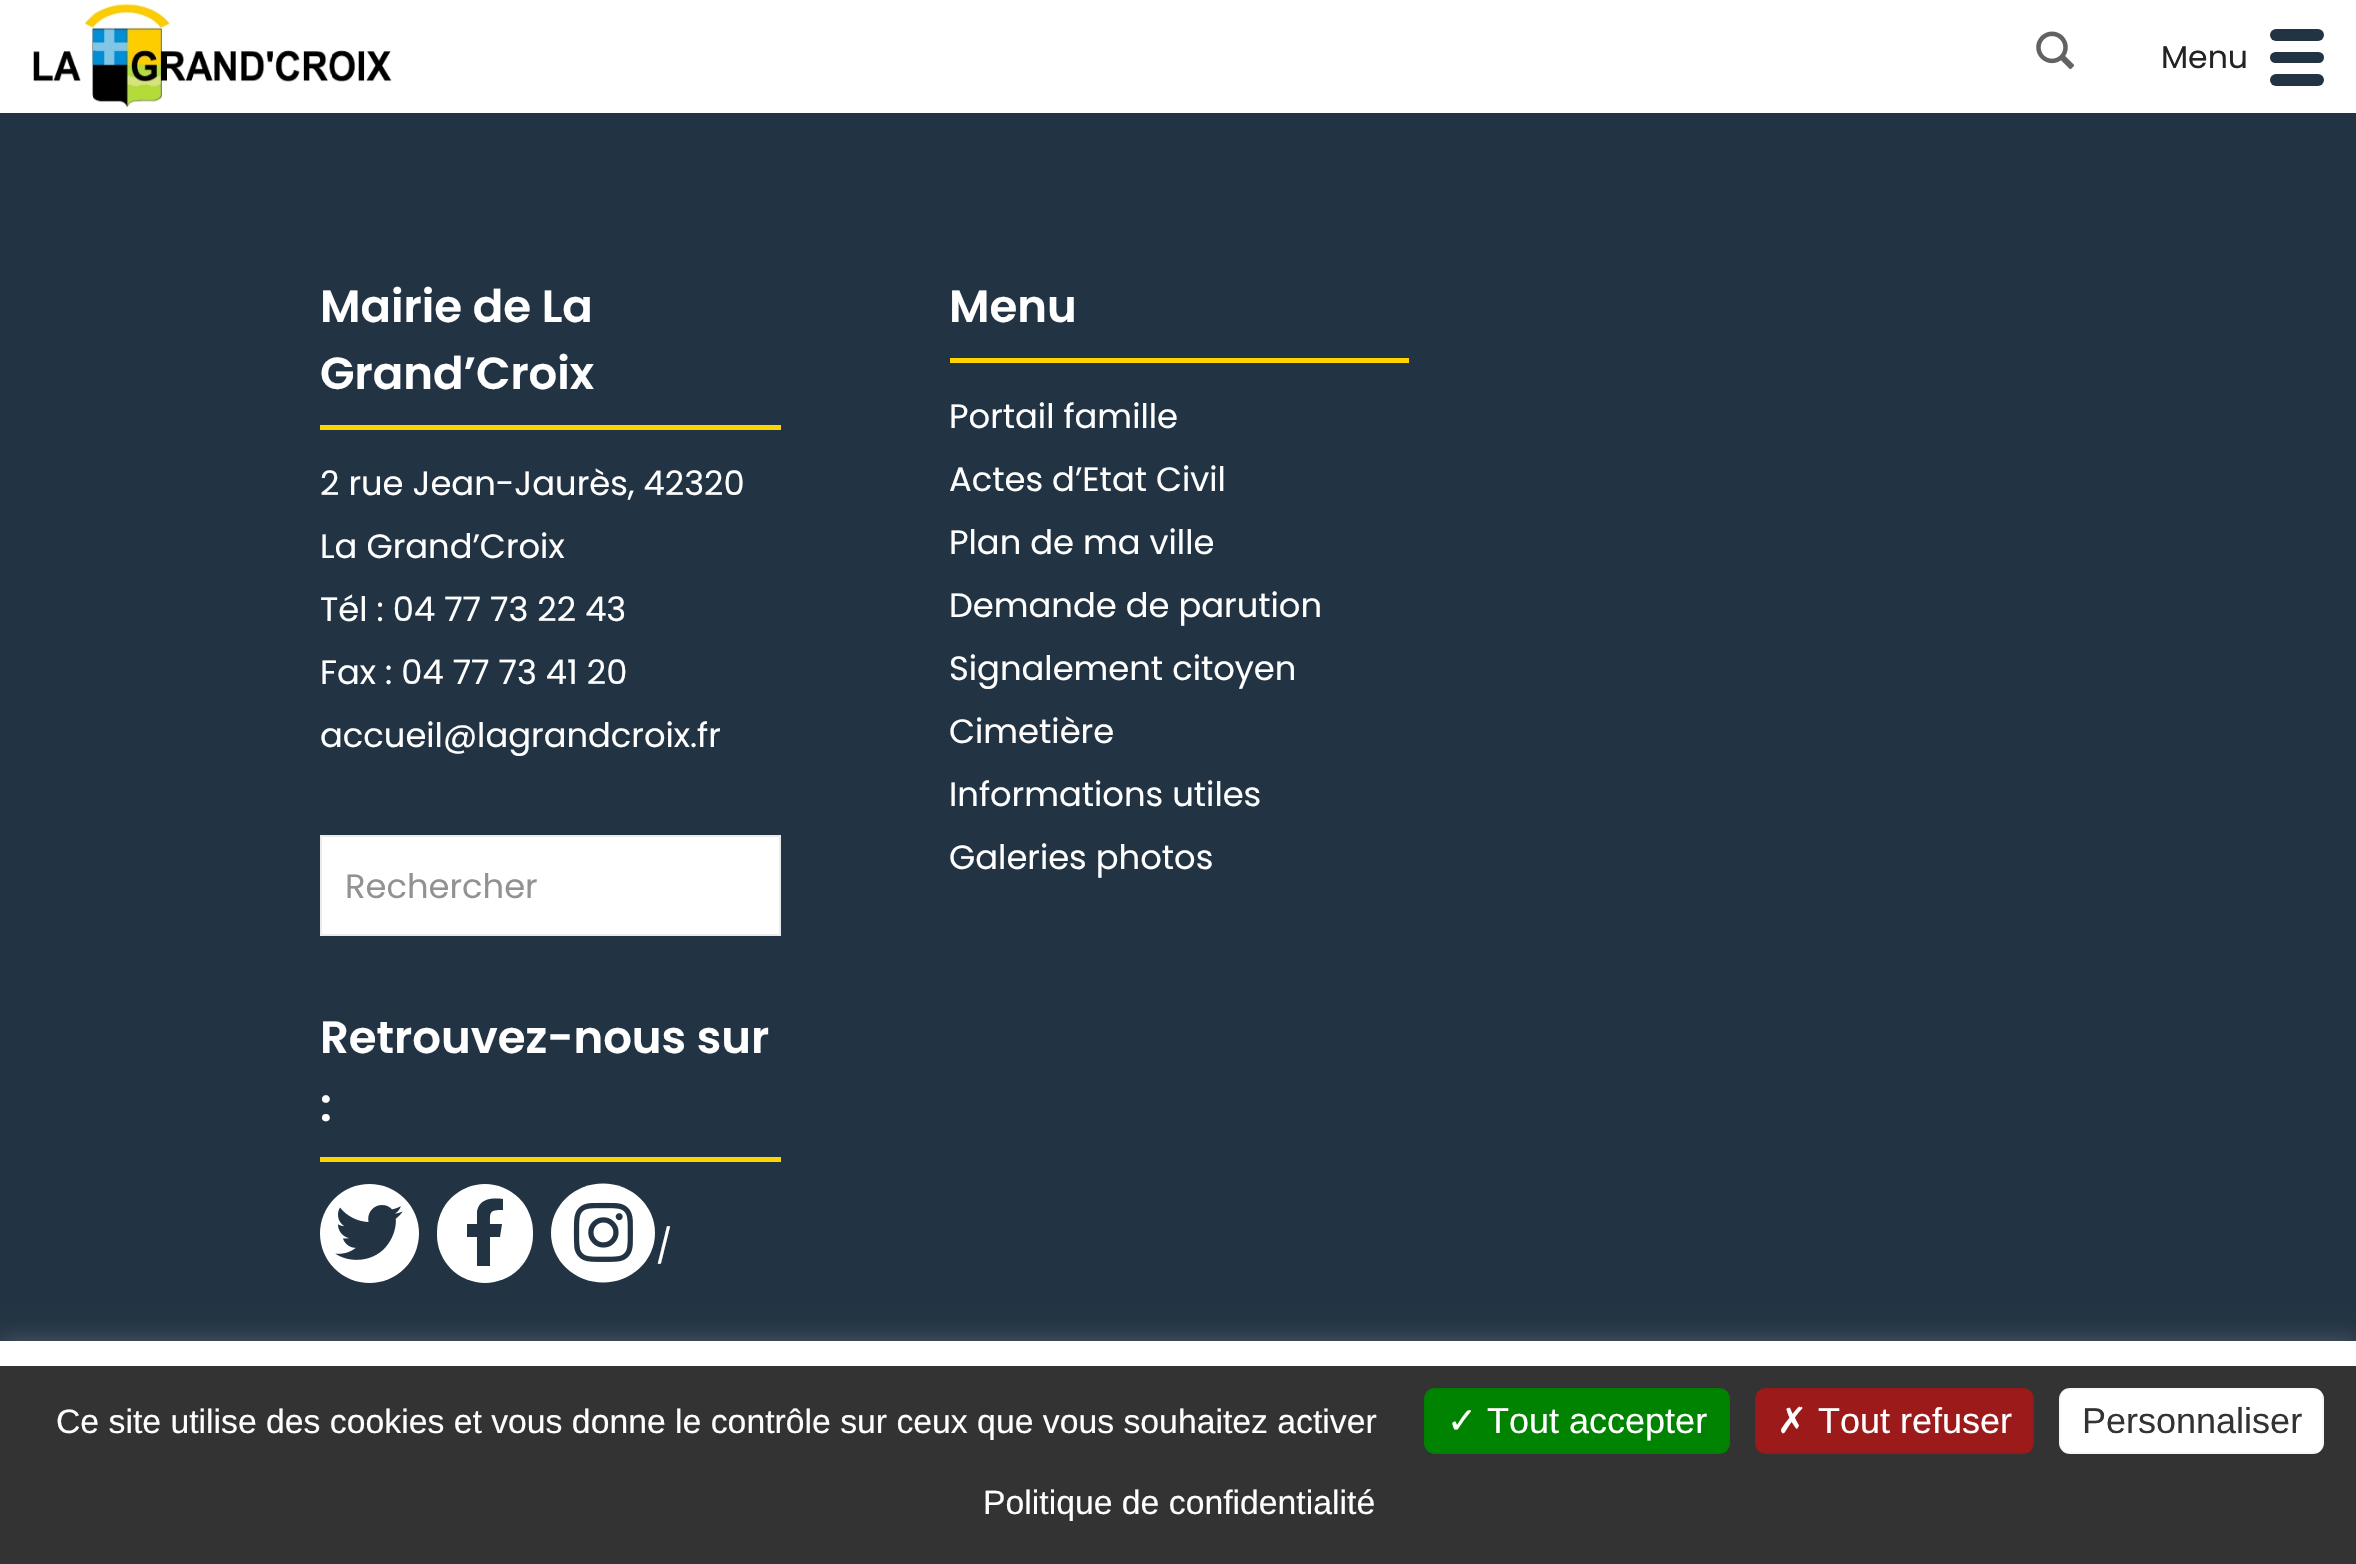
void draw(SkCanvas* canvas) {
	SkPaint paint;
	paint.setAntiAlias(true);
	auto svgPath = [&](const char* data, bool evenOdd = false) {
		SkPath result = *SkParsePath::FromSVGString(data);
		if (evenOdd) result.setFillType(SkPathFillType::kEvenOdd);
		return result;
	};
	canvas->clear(0xff223343);
	paint.setColor(0xffffffff);
	canvas->drawRect(SkRect::MakeXYWH(0, 0, 2356, 113), paint);
	canvas->drawImageRect(SkImages::DeferredFromEncodedData(SkData::MakeFromFileName("img1.png")), SkRect::MakeXYWH(33, 4, 359, 104), SkSamplingOptions());
	canvas->drawImageRect(SkImages::DeferredFromEncodedData(SkData::MakeFromFileName("img2.png")), SkRect::MakeXYWH(2036, 31, 39, 39), SkSamplingOptions());
	SkFont f1(fontMgr->matchFamilyStyle("Poppins", SkFontStyle::Normal()), 31.5);
	f1.setSubpixel(true);
	paint.setColor(0xff232323);
	canvas->drawString("Menu", 2161, 68, f1, paint);
	paint.setColor(0xff223343);
	canvas->drawRoundRect(SkRect::MakeXYWH(2270, 52, 54, 11), 5.5, 5.5, paint);
	canvas->drawRoundRect(SkRect::MakeXYWH(2270, 29, 54, 12), 6, 6, paint);
	canvas->drawRoundRect(SkRect::MakeXYWH(2270, 74, 54, 12), 6, 6, paint);
	SkFont f2(fontMgr->matchFamilyStyle("Poppins", SkFontStyle(600, SkFontStyle::kNormal_Width, SkFontStyle::kUpright_Slant)), 45);
	f2.setSubpixel(true);
	paint.setColor(0xffffffff);
	canvas->drawString("Mairie de La", 320, 322, f2, paint);
	canvas->drawString("Grand’Croix", 320, 389, f2, paint);
	paint.setColor(0xfffed400);
	canvas->drawRect(SkRect::MakeXYWH(320, 425, 461, 5), paint);
	SkFont f3(fontMgr->matchFamilyStyle("Poppins", SkFontStyle::Normal()), 33.75);
	f3.setSubpixel(true);
	paint.setColor(0xffffffff);
	canvas->drawString("2 rue Jean-Jaurès, 42320", 320, 495, f3, paint);
	canvas->drawString("La Grand’Croix", 320, 558, f3, paint);
	canvas->drawString("Tél : 04 77 73 22 43", 320, 621, f3, paint);
	canvas->drawString("Fax : 04 77 73 41 20", 320, 684, f3, paint);
	canvas->drawString("accueil@lagrandcroix.fr", 320, 747, f3, paint);
	canvas->drawRect(SkRect::MakeXYWH(321, 836, 459, 99), paint);
	paint.setStroke(true);
	paint.setStrokeWidth(2);
	paint.setColor(0xffebebeb);
	canvas->drawRect(SkRect::MakeXYWH(321, 836, 459, 99), paint);
	paint.setStroke(false);
	paint.setColor(0xff929292);
	canvas->drawString("Rechercher", 345, 898, f3, paint);
	paint.setColor(0xffffffff);
	canvas->drawString("Retrouvez-nous sur", 320, 1053, f2, paint);
	canvas->drawString(":", 320, 1121, f2, paint);
	paint.setColor(0xfffed400);
	canvas->drawRect(SkRect::MakeXYWH(320, 1157, 461, 5), paint);
	paint.setColor(0xffffffff);
	canvas->drawCircle(369.5, 1233.5, 49.5, paint);
	canvas->drawImageRect(SkImages::DeferredFromEncodedData(SkData::MakeFromFileName("img3.png")), SkRect::MakeXYWH(335, 1205, 68, 55), SkSamplingOptions());
	canvas->drawRoundRect(SkRect::MakeXYWH(437, 1184, 96, 99), 48, 48, paint);
	paint.setColor(0xff223343);
	canvas->drawPath(svgPath("M500 1237H490V1266H477V1237H467V1224H477V1211C480 1198 492 1198 503 1199V1210C489 1210 490 1212 490 1224H502Z"), paint);
	paint.setColor(0xffffffff);
	canvas->drawOval(SkRect::MakeXYWH(551, 1183.5, 104, 99), paint);
	canvas->drawImageRect(SkImages::DeferredFromEncodedData(SkData::MakeFromFileName("img4.png")), SkRect::MakeXYWH(573, 1202, 60, 60), SkSamplingOptions());
	canvas->drawString("/", 656, 1258, f3, paint);
	canvas->drawString("Menu", 949, 322, f2, paint);
	paint.setColor(0xfffed400);
	canvas->drawRect(SkRect::MakeXYWH(950, 358, 459, 5), paint);
	paint.setColor(0xffffffff);
	canvas->drawString("Portail famille", 949, 428, f3, paint);
	canvas->drawString("Actes d’Etat Civil", 949, 491, f3, paint);
	canvas->drawString("Plan de ma ville", 949, 554, f3, paint);
	canvas->drawString("Demande de parution", 949, 617, f3, paint);
	canvas->drawString("Signalement citoyen", 949, 680, f3, paint);
	canvas->drawString("Cimetière", 949, 743, f3, paint);
	canvas->drawString("Informations utiles", 949, 806, f3, paint);
	canvas->drawString("Galeries photos", 949, 869, f3, paint);
	paint.setColor(0x4dacabab);
	paint.setMaskFilter(SkMaskFilter::MakeBlur(kNormal_SkBlurStyle, 11));
	canvas->drawRect(SkRect::MakeXYWH(0, 1339, 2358, 225), paint);
	paint.setMaskFilter(nullptr);
	paint.setColor(0xffffffff);
	canvas->drawRect(SkRect::MakeXYWH(0, 1341, 2356, 25), paint);
	paint.setColor(0xff333333);
	canvas->drawRect(SkRect::MakeXYWH(0, 1366, 2356, 198), paint);
	SkFont f4(fontMgr->matchFamilyStyle("Liberation Sans", SkFontStyle::Normal()), 33.75);
	f4.setSubpixel(true);
	paint.setColor(0xffffffff);
	canvas->drawString("Ce site utilise des cookies et vous donne le contrôle sur ceux que vous souhaitez activer", 56, 1433, f4, paint);
	paint.setColor(0xff008300);
	canvas->drawRoundRect(SkRect::MakeXYWH(1424, 1388, 306, 66), 11, 11, paint);
	paint.setStroke(true);
	paint.setColor(0x08000000);
	canvas->drawRect(SkRect::MakeXYWH(1425, 1389, 304, 64), paint);
	SkFont f5(fontMgr->matchFamilyStyle("DejaVu Sans", SkFontStyle::Normal()), 36);
	f5.setSubpixel(true);
	paint.setStroke(false);
	paint.setColor(0xffffffff);
	canvas->drawString("✓", 1447, 1433, f5, paint);
	SkFont f6(fontMgr->matchFamilyStyle("Liberation Sans", SkFontStyle::Normal()), 36);
	f6.setSubpixel(true);
	canvas->drawString("Tout accepter", 1487, 1433, f6, paint);
	paint.setColor(0xff9c1a1a);
	canvas->drawRoundRect(SkRect::MakeXYWH(1755, 1388, 279, 66), 11, 11, paint);
	paint.setStroke(true);
	paint.setColor(0x08000000);
	canvas->drawRect(SkRect::MakeXYWH(1756, 1389, 277, 64), paint);
	paint.setStroke(false);
	paint.setColor(0xffffffff);
	canvas->drawString("✗", 1777, 1433, f5, paint);
	canvas->drawString("Tout refuser", 1818, 1433, f6, paint);
	canvas->drawRoundRect(SkRect::MakeXYWH(2059, 1388, 265, 66), 11, 11, paint);
	paint.setStroke(true);
	paint.setColor(0x08000000);
	canvas->drawRect(SkRect::MakeXYWH(2060, 1389, 263, 64), paint);
	paint.setStroke(false);
	paint.setColor(0xff333333);
	canvas->drawString("Personnaliser", 2082, 1433, f6, paint);
	paint.setColor(0xffffffff);
	canvas->drawString("Politique de confidentialité", 983, 1514, f4, paint);
}
